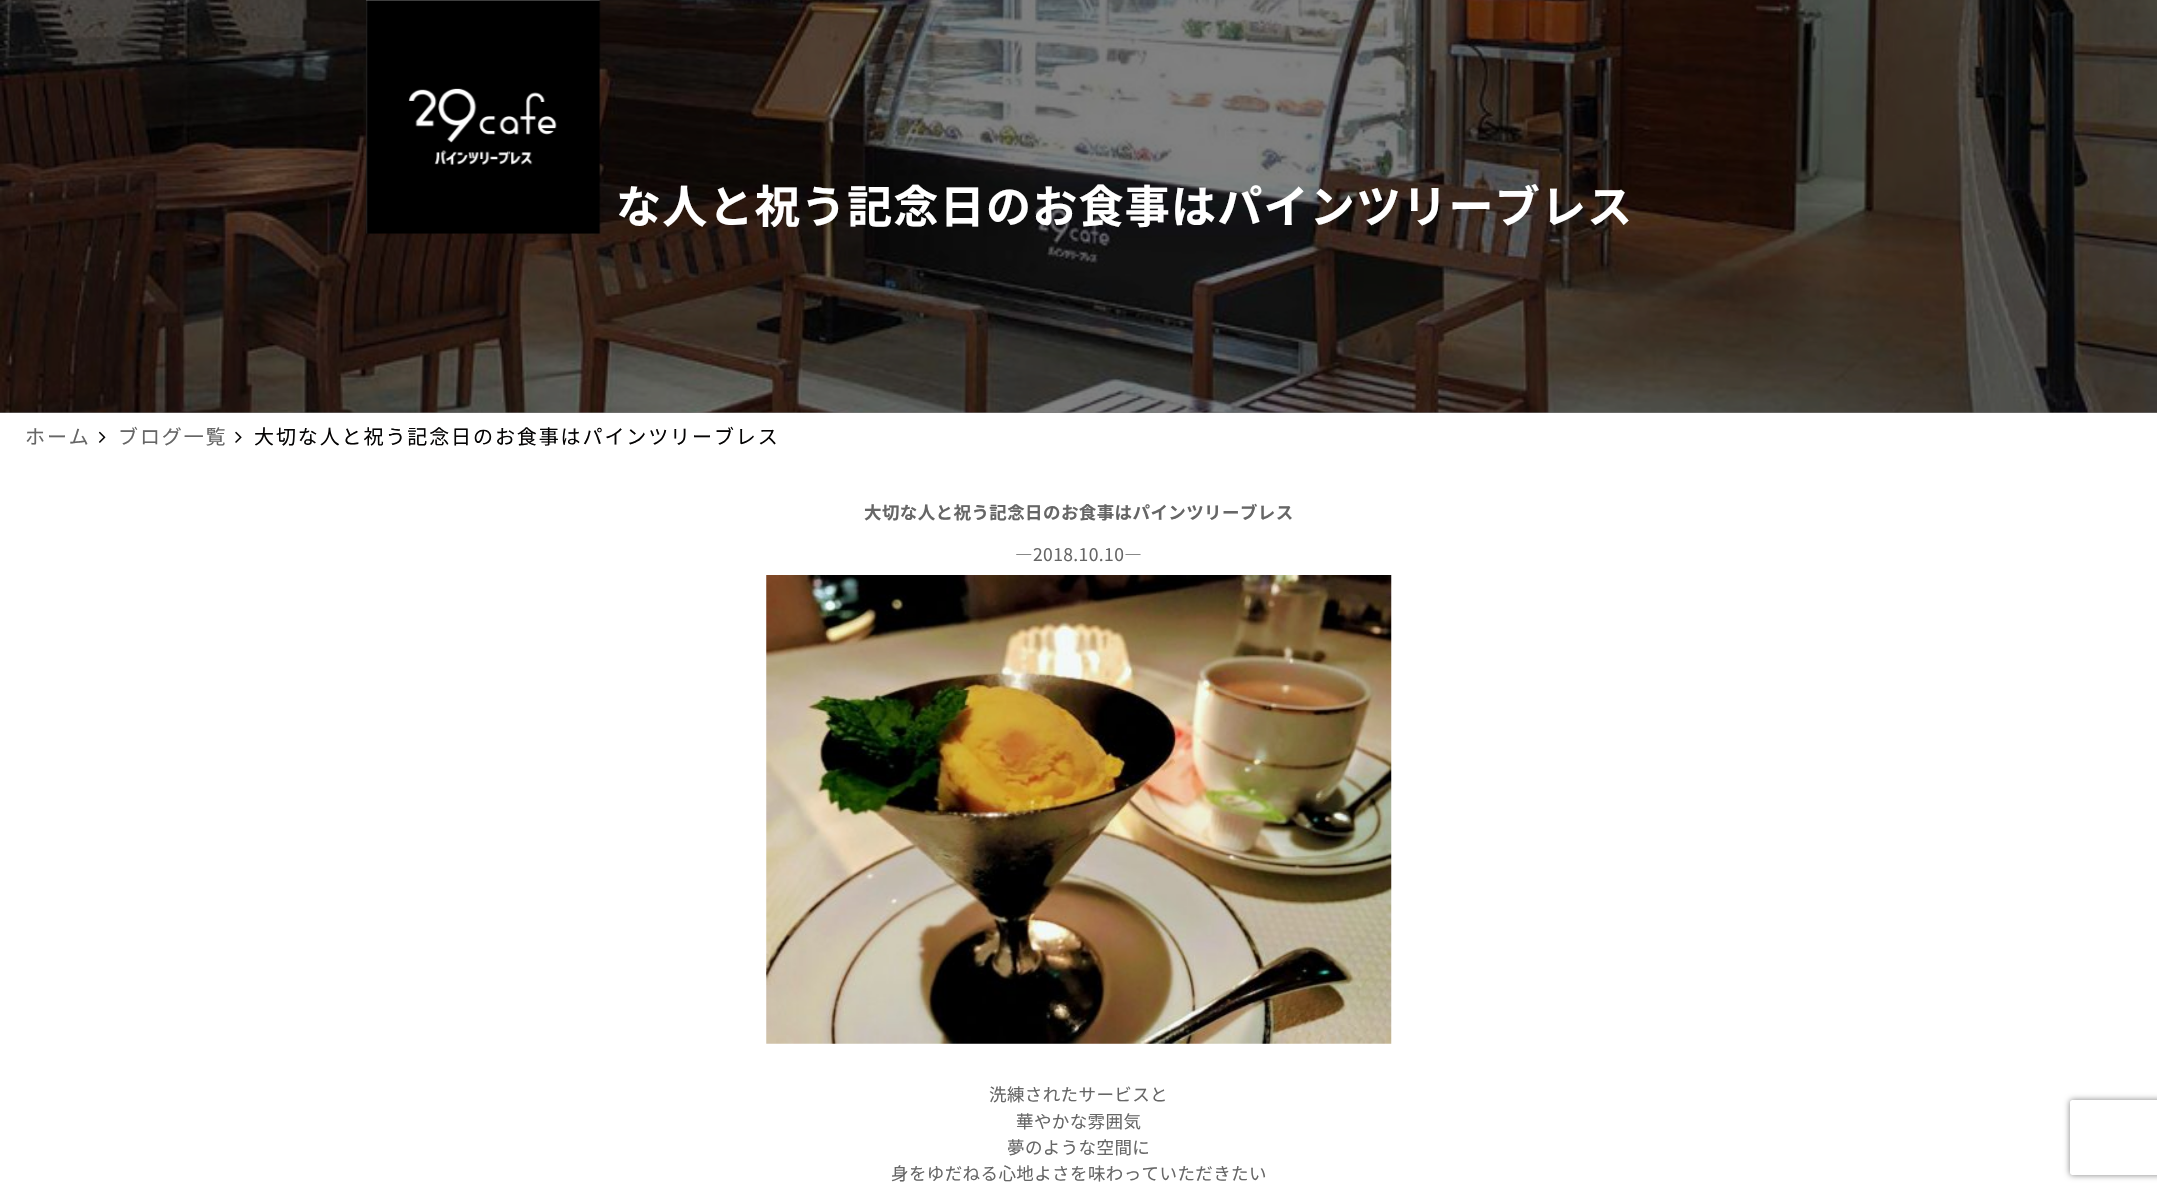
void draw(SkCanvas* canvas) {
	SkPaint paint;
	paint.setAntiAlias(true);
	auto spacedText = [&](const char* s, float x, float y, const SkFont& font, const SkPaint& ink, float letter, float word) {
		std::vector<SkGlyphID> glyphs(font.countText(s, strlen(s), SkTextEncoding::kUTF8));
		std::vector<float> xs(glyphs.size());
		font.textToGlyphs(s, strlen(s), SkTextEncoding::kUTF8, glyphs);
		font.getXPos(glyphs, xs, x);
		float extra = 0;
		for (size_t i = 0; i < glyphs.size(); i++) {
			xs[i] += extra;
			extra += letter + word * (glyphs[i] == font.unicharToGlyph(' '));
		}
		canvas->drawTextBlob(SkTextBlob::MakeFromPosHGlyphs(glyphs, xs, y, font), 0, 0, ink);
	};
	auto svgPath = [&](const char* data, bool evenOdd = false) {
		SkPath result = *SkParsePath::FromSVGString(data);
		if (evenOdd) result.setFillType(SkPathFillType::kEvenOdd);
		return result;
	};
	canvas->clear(0xffffffff);
	paint.setColor(0xff808080);
	canvas->drawRect(SkRect::MakeXYWH(0, 412, 2157, 1), paint);
	canvas->drawImageRect(SkImages::DeferredFromEncodedData(SkData::MakeFromFileName("img2.png")), SkRect::MakeXYWH(0, 0, 2157, 413), SkSamplingOptions());
	canvas->drawImageRect(SkImages::DeferredFromEncodedData(SkData::MakeFromFileName("img1.png")), SkRect::MakeXYWH(366, 0, 235, 234), SkSamplingOptions());
	SkFont f1(fontMgr->matchFamilyStyle("Noto Sans CJK JP", SkFontStyle::Bold()), 45);
	f1.setSubpixel(true);
	paint.setColor(0xffffffff);
	spacedText("な人と祝う記念日のお食事はパインツリーブレス", 616, 223, f1, paint, 1.25, 0);
	SkFont f2(fontMgr->matchFamilyStyle("Noto Sans CJK JP", SkFontStyle::Normal()), 20);
	f2.setSubpixel(true);
	paint.setColor(0xff666666);
	spacedText("ホーム", 25, 444, f2, paint, 1.9, 0);
	canvas->drawImageRect(SkImages::DeferredFromEncodedData(SkData::MakeFromFileName("img3.png")), SkRect::MakeXYWH(98, 431, 8, 12), SkSamplingOptions());
	spacedText("ブログ一覧", 118, 444, f2, paint, 1.9, 0);
	canvas->drawImageRect(SkImages::DeferredFromEncodedData(SkData::MakeFromFileName("img4.png")), SkRect::MakeXYWH(235, 431, 7, 12), SkSamplingOptions());
	paint.setColor(0xff050404);
	spacedText("大切な人と祝う記念日のお食事はパインツリーブレス", 254, 444, f2, paint, 1.9, 0);
	SkFont f3(fontMgr->matchFamilyStyle("Noto Sans CJK JP", SkFontStyle::Bold()), 17.5);
	f3.setSubpixel(true);
	paint.setColor(0xff666666);
	spacedText("大切な人と祝う記念日のお食事はパインツリーブレス", 864, 519, f3, paint, 0.4, 0);
	SkFont f4(fontMgr->matchFamilyStyle("Noto Sans CJK JP", SkFontStyle::Normal()), 17.5);
	f4.setSubpixel(true);
	spacedText("―2018.10.10―", 1015, 561, f4, paint, 0.4, 0);
	canvas->drawImageRect(SkImages::DeferredFromEncodedData(SkData::MakeFromFileName("img5.png")), SkRect::MakeXYWH(766, 575, 626, 469), SkSamplingOptions());
	spacedText("洗練されたサービスと", 989, 1101, f4, paint, 0.4, 0);
	spacedText("華やかな雰囲気", 1016, 1128, f4, paint, 0.4, 0);
	spacedText("夢のような空間に", 1007, 1154, f4, paint, 0.4, 0);
	spacedText("身をゆだねる心地よさを味わっていただきたい", 891, 1180, f4, paint, 0.4, 0);
	canvas->save();
	canvas->clipPath(svgPath("M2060 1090H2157V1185H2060ZM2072.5 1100H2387.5C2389 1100 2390 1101 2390 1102.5V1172.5C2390 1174 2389 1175 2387.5 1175H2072.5C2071 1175 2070 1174 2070 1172.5V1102.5C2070 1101 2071 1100 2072.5 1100Z", true), true);
	paint.setColor(0xff808080);
	paint.setMaskFilter(SkMaskFilter::MakeBlur(kNormal_SkBlurStyle, 3));
	canvas->drawRoundRect(SkRect::MakeXYWH(2070, 1100, 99, 75), 2.5, 2.5, paint);
	paint.setMaskFilter(nullptr);
	canvas->restore();
}
